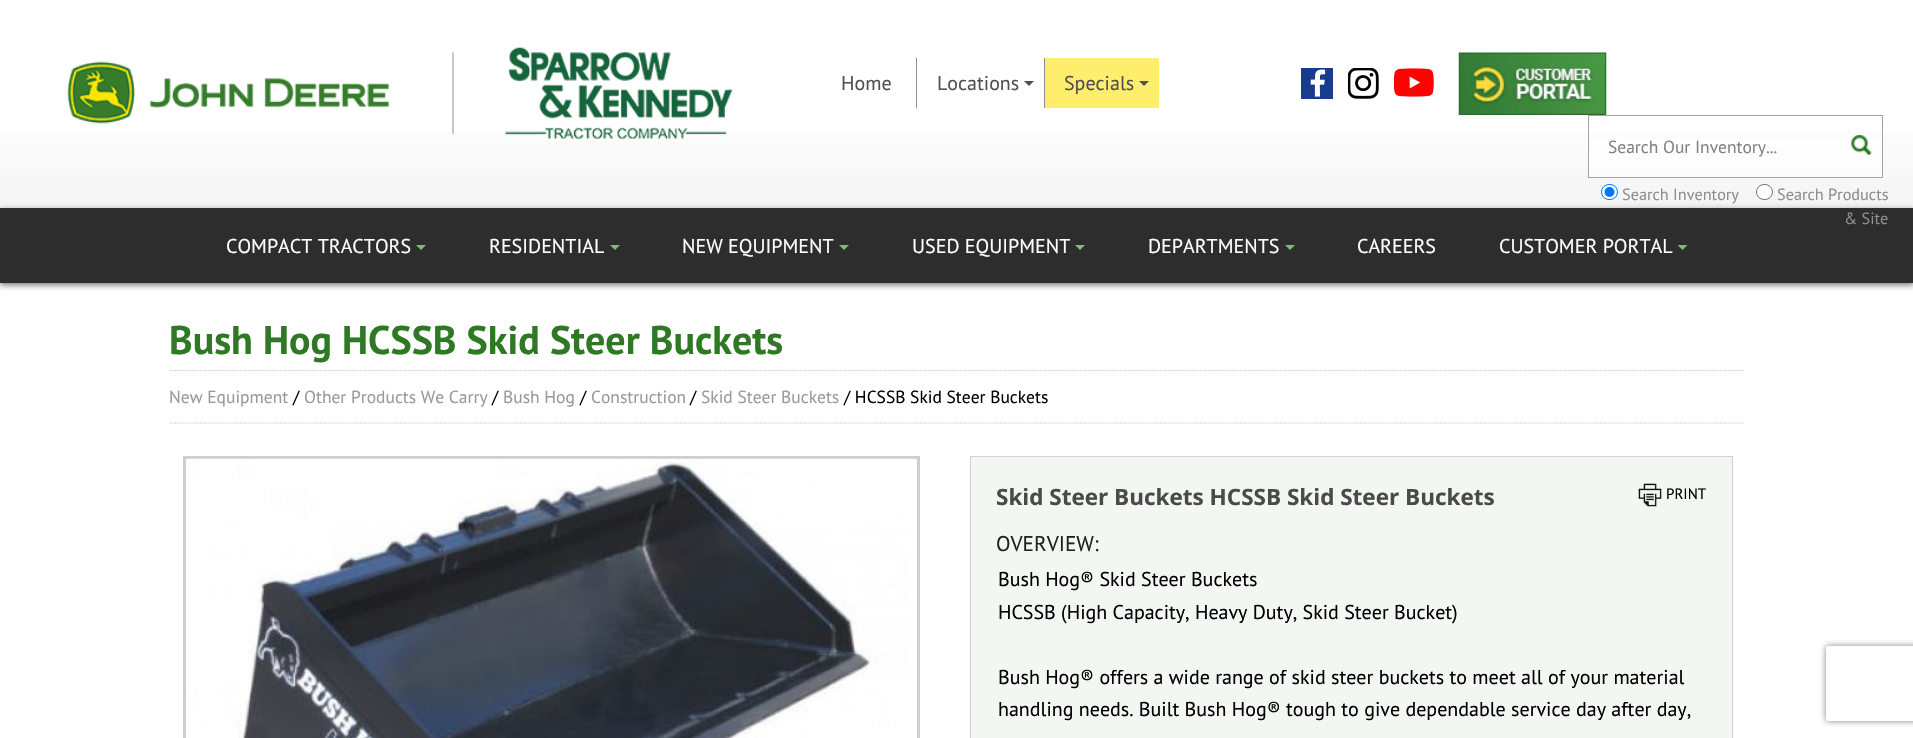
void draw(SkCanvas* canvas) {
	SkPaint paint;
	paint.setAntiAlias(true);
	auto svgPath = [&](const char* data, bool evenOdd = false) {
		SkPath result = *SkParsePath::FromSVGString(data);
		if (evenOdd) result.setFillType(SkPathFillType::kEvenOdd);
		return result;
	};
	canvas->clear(0xffffffff);
	{
		const SkColor colors[] = {0xffffffff, 0xffffffff, 0xfff4f4f5};
		const float stops[] = {0, 0.52, 1};
		const SkPoint ends[] = {{957, 0}, {957, 208}};
		paint.setShader(SkGradientShader::MakeLinear(ends, colors, stops, 3, SkTileMode::kClamp));
		paint.setAlpha(255);
	}
	canvas->drawRect(SkRect::MakeXYWH(0, 131, 1913, 77), paint);
	{
		const SkColor colors[] = {0xffffffff, 0xffffffff, 0xfffbfbfb};
		const float stops[] = {0, 0.52, 1};
		const SkPoint ends[] = {{957, 0}, {957, 208}};
		paint.setShader(SkGradientShader::MakeLinear(ends, colors, stops, 3, SkTileMode::kClamp));
		paint.setAlpha(255);
	}
	canvas->drawRect(SkRect::MakeXYWH(1589, 140, 293, 37), paint);
	canvas->drawImageRect(SkImages::DeferredFromEncodedData(SkData::MakeFromFileName("img1.png")), SkRect::MakeXYWH(67, 47, 666, 92), SkSamplingOptions());
	SkFont f1(fontMgr->matchFamilyStyle("PT Sans", SkFontStyle::Normal()), 20);
	f1.setSubpixel(true);
	paint.setShader(nullptr);
	paint.setColor(0xff505050);
	canvas->drawString("Home", 841, 90, f1, paint);
	paint.setColor(0xff8f8f8f);
	canvas->drawRect(SkRect::MakeXYWH(916, 58, 1, 50), paint);
	paint.setColor(0xff505050);
	canvas->drawString("Locations", 937, 90, f1, paint);
	canvas->drawPath(svgPath("M1024 81H1034L1029 86Z"), paint);
	paint.setColor(0xffffed6d);
	canvas->drawRect(SkRect::MakeXYWH(1045, 58, 114, 50), paint);
	paint.setColor(0xff8f8f8f);
	canvas->drawRect(SkRect::MakeXYWH(1044, 58, 1, 50), paint);
	paint.setColor(0xff505050);
	canvas->drawString("Specials", 1064, 90, f1, paint);
	canvas->drawPath(svgPath("M1139 81H1149L1144 86Z"), paint);
	canvas->drawImageRect(SkImages::DeferredFromEncodedData(SkData::MakeFromFileName("img2.png")), SkRect::MakeXYWH(1301, 68, 32, 31), SkSamplingOptions());
	canvas->drawImageRect(SkImages::DeferredFromEncodedData(SkData::MakeFromFileName("img3.png")), SkRect::MakeXYWH(1348, 68, 31, 31), SkSamplingOptions());
	canvas->drawImageRect(SkImages::DeferredFromEncodedData(SkData::MakeFromFileName("img4.png")), SkRect::MakeXYWH(1394, 68, 40, 29), SkSamplingOptions());
	canvas->drawImageRect(SkImages::DeferredFromEncodedData(SkData::MakeFromFileName("img5.png")), SkRect::MakeXYWH(1458, 52, 149, 63), SkSamplingOptions());
	paint.setStroke(true);
	paint.setStrokeWidth(1);
	paint.setColor(0xffa3a3a3);
	canvas->drawRect(SkRect::MakeXYWH(1588.5, 115.5, 294, 62), paint);
	SkFont f2(fontMgr->matchFamilyStyle("PT Sans", SkFontStyle::Normal()), 17.5);
	f2.setSubpixel(true);
	paint.setStroke(false);
	paint.setColor(0xff828282);
	canvas->drawString("Search Our Inventory...", 1608, 153, f2, paint);
	canvas->drawImageRect(SkImages::DeferredFromEncodedData(SkData::MakeFromFileName("img6.png")), SkRect::MakeXYWH(1851, 135, 21, 20), SkSamplingOptions());
	paint.setColor(0xffffffff);
	canvas->drawRoundRect(SkRect::MakeXYWH(1601.5, 184.5, 16, 15), 7.5, 7.5, paint);
	paint.setStroke(true);
	paint.setColor(0xff0075ff);
	canvas->drawRoundRect(SkRect::MakeXYWH(1601.5, 184.5, 16, 15), 7.5, 7.5, paint);
	paint.setStroke(false);
	canvas->drawCircle(1609.5, 192, 5, paint);
	paint.setColor(0x8c000000);
	paint.setMaskFilter(SkMaskFilter::MakeBlur(kNormal_SkBlurStyle, 3));
	canvas->drawRect(SkRect::MakeXYWH(0, 210, 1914, 75), paint);
	paint.setMaskFilter(nullptr);
	SkFont f3(fontMgr->matchFamilyStyle("PT Sans", SkFontStyle::Normal()), 16.25);
	f3.setSubpixel(true);
	paint.setColor(0xff8e8e8e);
	canvas->drawString("Search Inventory", 1622, 200, f3, paint);
	paint.setColor(0xffffffff);
	canvas->drawRoundRect(SkRect::MakeXYWH(1756.5, 184.5, 16, 15), 7.5, 7.5, paint);
	paint.setStroke(true);
	paint.setColor(0xff767676);
	canvas->drawRoundRect(SkRect::MakeXYWH(1756.5, 184.5, 16, 15), 7.5, 7.5, paint);
	paint.setStroke(false);
	paint.setColor(0xff8e8e8e);
	canvas->drawString("Search Products", 1777, 200, f3, paint);
	paint.setColor(0xff2d2d2d);
	canvas->drawRect(SkRect::MakeXYWH(0, 208, 1913, 75), paint);
	paint.setColor(0xff8e8e8e);
	canvas->drawString("& Site", 1844, 224, f3, paint);
	paint.setColor(0xfffefefe);
	canvas->drawString("COMPACT TRACTORS", 226, 253, f1, paint);
	paint.setColor(0xff7cbc74);
	canvas->drawPath(svgPath("M416 245H426L421 250Z"), paint);
	paint.setColor(0xfffefefe);
	canvas->drawString("RESIDENTIAL", 489, 253, f1, paint);
	paint.setColor(0xff7cbc74);
	canvas->drawPath(svgPath("M610 245H620L615 250Z"), paint);
	paint.setColor(0xfffefefe);
	canvas->drawString("NEW EQUIPMENT", 682, 253, f1, paint);
	paint.setColor(0xff7cbc74);
	canvas->drawPath(svgPath("M839 245H849L844 250Z"), paint);
	paint.setColor(0xfffefefe);
	canvas->drawString("USED EQUIPMENT", 912, 253, f1, paint);
	paint.setColor(0xff7cbc74);
	canvas->drawPath(svgPath("M1075 245H1085L1080 250Z"), paint);
	paint.setColor(0xfffefefe);
	canvas->drawString("DEPARTMENTS", 1148, 253, f1, paint);
	paint.setColor(0xff7cbc74);
	canvas->drawPath(svgPath("M1285 245H1295L1290 250Z"), paint);
	paint.setColor(0xfffefefe);
	canvas->drawString("CAREERS", 1357, 253, f1, paint);
	canvas->drawString("CUSTOMER PORTAL", 1499, 253, f1, paint);
	paint.setColor(0xff7cbc74);
	canvas->drawPath(svgPath("M1677.5 245H1687.5L1682.5 250Z"), paint);
	paint.setStroke(true);
	paint.setStrokeWidth(1.2);
	paint.setColor(0xffc7c7c7);
	paint.setPathEffect(SkDashPathEffect::Make({{1.25f, 1.25f}}, 0));
	canvas->drawPath(svgPath("M170 370.5H1745"), paint);
	paint.setPathEffect(nullptr);
	SkFont f4(fontMgr->matchFamilyStyle("PT Sans", SkFontStyle::Bold()), 40);
	f4.setSubpixel(true);
	paint.setStroke(false);
	paint.setColor(0xff2f7925);
	canvas->drawString("Bush Hog HCSSB Skid Steer Buckets", 169, 354, f4, paint);
	paint.setStroke(true);
	paint.setColor(0xffc7c7c7);
	paint.setPathEffect(SkDashPathEffect::Make({{1.25f, 1.25f}}, 0));
	canvas->drawPath(svgPath("M170 423H1745"), paint);
	paint.setPathEffect(nullptr);
	paint.setStroke(false);
	paint.setColor(0xff999999);
	canvas->drawString("New Equipment", 169, 403, f2, paint);
	paint.setColor(0xff000000);
	canvas->drawString("/", 293, 403, f2, paint);
	paint.setColor(0xff999999);
	canvas->drawString("Other Products We Carry", 304, 403, f2, paint);
	paint.setColor(0xff000000);
	canvas->drawString("/", 492, 403, f2, paint);
	paint.setColor(0xff999999);
	canvas->drawString("Bush Hog", 503, 403, f2, paint);
	paint.setColor(0xff000000);
	canvas->drawString("/", 580, 403, f2, paint);
	paint.setColor(0xff999999);
	canvas->drawString("Construction", 591, 403, f2, paint);
	paint.setColor(0xff000000);
	canvas->drawString("/", 690, 403, f2, paint);
	paint.setColor(0xff999999);
	canvas->drawString("Skid Steer Buckets", 701, 403, f2, paint);
	paint.setColor(0xff000000);
	canvas->drawString("/ HCSSB Skid Steer Buckets", 844, 403, f2, paint);
	paint.setStroke(true);
	paint.setStrokeWidth(3);
	paint.setColor(0xffcecece);
	canvas->drawRect(SkRect::MakeXYWH(184.5, 457.5, 734, 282), paint);
	canvas->drawImageRect(SkImages::DeferredFromEncodedData(SkData::MakeFromFileName("img7.png")), SkRect::MakeXYWH(187, 458, 728, 280), SkSamplingOptions());
	paint.setStroke(false);
	paint.setColor(0xfff3f7f1);
	canvas->drawRect(SkRect::MakeXYWH(970.5, 456.5, 762, 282), paint);
	paint.setStroke(true);
	paint.setStrokeWidth(1);
	paint.setColor(0xffd1d1d1);
	canvas->drawRect(SkRect::MakeXYWH(970.5, 456.5, 762, 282), paint);
	SkFont f5(fontMgr->matchFamilyStyle("Open Sans", SkFontStyle::Bold()), 22.5);
	f5.setSubpixel(true);
	paint.setStroke(false);
	paint.setColor(0xff4a4a4a);
	canvas->drawString("Skid Steer Buckets HCSSB Skid Steer Buckets", 996, 505, f5, paint);
	canvas->drawImageRect(SkImages::DeferredFromEncodedData(SkData::MakeFromFileName("img8.png")), SkRect::MakeXYWH(1638, 483, 24, 24), SkSamplingOptions());
	SkFont f6(fontMgr->matchFamilyStyle("PT Sans", SkFontStyle::Normal()), 15);
	f6.setSubpixel(true);
	paint.setColor(0xff000000);
	canvas->drawString("PRINT", 1666, 499, f6, paint);
	SkFont f7(fontMgr->matchFamilyStyle("PT Sans", SkFontStyle::Normal()), 21.25);
	f7.setSubpixel(true);
	paint.setColor(0xff222222);
	canvas->drawString("OVERVIEW:", 996, 551, f7, paint);
	paint.setColor(0xff000000);
	canvas->drawString("Bush Hog® Skid Steer Buckets", 998, 586, f1, paint);
	canvas->drawString("HCSSB (High Capacity, Heavy Duty, Skid Steer Bucket)", 998, 619, f1, paint);
	canvas->drawString("Bush Hog® offers a wide range of skid steer buckets to meet all of your material", 998, 684, f1, paint);
	canvas->drawString("handling needs. Built Bush Hog® tough to give dependable service day after day,", 998, 716, f1, paint);
	canvas->save();
	canvas->clipPath(svgPath("M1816 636H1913V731H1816ZM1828.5 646H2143.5C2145 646 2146 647 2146 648.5V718.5C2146 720 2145 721 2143.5 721H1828.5C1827 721 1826 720 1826 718.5V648.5C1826 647 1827 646 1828.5 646Z", true), true);
	paint.setColor(0xff808080);
	paint.setMaskFilter(SkMaskFilter::MakeBlur(kNormal_SkBlurStyle, 3));
	canvas->drawRoundRect(SkRect::MakeXYWH(1826, 646, 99, 75), 2.5, 2.5, paint);
	paint.setMaskFilter(nullptr);
	canvas->restore();
}
